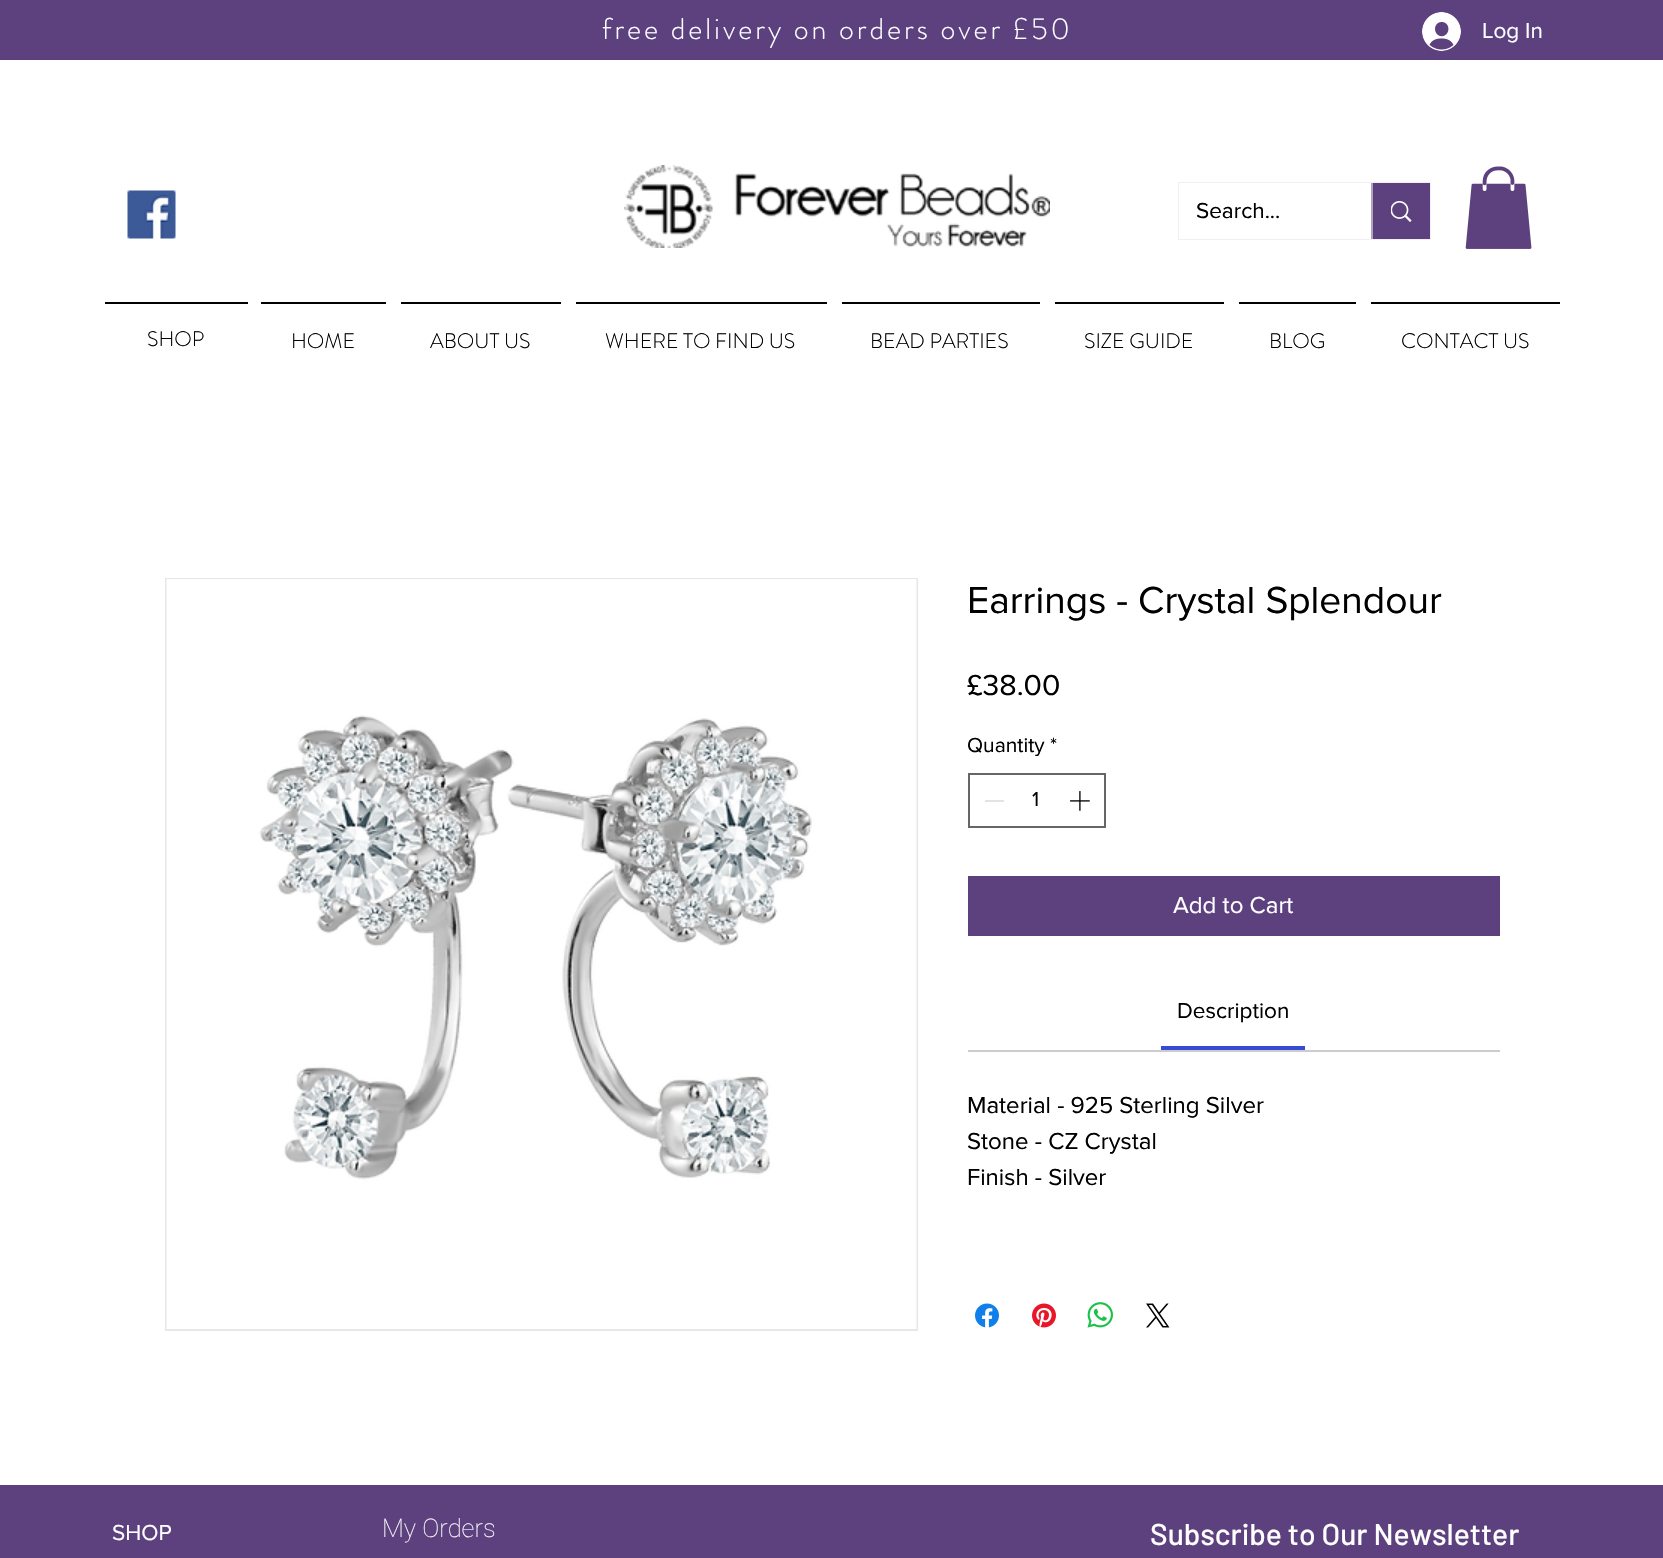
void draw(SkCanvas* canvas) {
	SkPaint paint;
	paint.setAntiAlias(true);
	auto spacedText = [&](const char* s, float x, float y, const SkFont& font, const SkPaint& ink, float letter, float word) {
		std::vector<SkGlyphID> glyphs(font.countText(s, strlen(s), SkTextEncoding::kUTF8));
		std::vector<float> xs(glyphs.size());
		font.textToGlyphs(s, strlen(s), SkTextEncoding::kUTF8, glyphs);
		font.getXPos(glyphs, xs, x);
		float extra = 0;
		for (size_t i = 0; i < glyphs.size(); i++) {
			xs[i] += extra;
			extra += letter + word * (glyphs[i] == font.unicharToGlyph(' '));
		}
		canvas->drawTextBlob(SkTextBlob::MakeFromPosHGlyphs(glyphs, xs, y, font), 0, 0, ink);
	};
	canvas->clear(0xffffffff);
	paint.setColor(0xff5d417f);
	canvas->drawRect(SkRect::MakeXYWH(0, 0, 1663, 60), paint);
	SkFont f1(fontMgr->matchFamilyStyle("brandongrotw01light", SkFontStyle(300, SkFontStyle::kNormal_Width, SkFontStyle::kUpright_Slant)), 30);
	f1.setSubpixel(true);
	paint.setColor(0xffffffff);
	spacedText("free delivery on orders over £50", 602, 39, f1, paint, 3, 0);
	canvas->drawImageRect(SkImages::DeferredFromEncodedData(SkData::MakeFromFileName("img1.png")), SkRect::MakeXYWH(1422, 12, 39, 39), SkSamplingOptions());
	SkFont f2(fontMgr->matchFamilyStyle("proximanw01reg", SkFontStyle::Normal()), 22.5);
	f2.setSubpixel(true);
	canvas->drawString("Log In", 1482, 38, f2, paint);
	canvas->drawImageRect(SkImages::DeferredFromEncodedData(SkData::MakeFromFileName("img2.png")), SkRect::MakeXYWH(127, 190, 49, 49), SkSamplingOptions());
	canvas->drawImageRect(SkImages::DeferredFromEncodedData(SkData::MakeFromFileName("img3.png")), SkRect::MakeXYWH(624, 165, 426, 83), SkSamplingOptions());
	paint.setStroke(true);
	paint.setStrokeWidth(2);
	paint.setColor(0xfff1f0f0);
	canvas->drawRect(SkRect::MakeXYWH(1179, 183, 251, 56), paint);
	paint.setStroke(false);
	paint.setColor(0xffffffff);
	canvas->drawRect(SkRect::MakeXYWH(1179, 183, 192, 56), paint);
	paint.setColor(0xff000000);
	canvas->drawString("Search...", 1196, 218, f2, paint);
	paint.setColor(0xff5d417f);
	canvas->drawRect(SkRect::MakeXYWH(1373, 183, 57, 56), paint);
	paint.setColor(0xffb0a4bd);
	canvas->drawRect(SkRect::MakeXYWH(1371, 183, 2, 56), paint);
	canvas->drawImageRect(SkImages::DeferredFromEncodedData(SkData::MakeFromFileName("img4.png")), SkRect::MakeXYWH(1391, 201, 21, 21), SkSamplingOptions());
	canvas->drawImageRect(SkImages::DeferredFromEncodedData(SkData::MakeFromFileName("img5.png")), SkRect::MakeXYWH(1465, 166, 67, 83), SkSamplingOptions());
	paint.setColor(0xff000000);
	canvas->drawRect(SkRect::MakeXYWH(105, 302, 143, 2), paint);
	SkFont f3(fontMgr->matchFamilyStyle("brandongrotw01light", SkFontStyle(300, SkFontStyle::kNormal_Width, SkFontStyle::kUpright_Slant)), 21);
	f3.setSubpixel(true);
	canvas->drawString("SHOP", 147, 346, f3, paint);
	canvas->drawRect(SkRect::MakeXYWH(261, 302, 125, 2), paint);
	canvas->drawString("HOME", 291, 348, f3, paint);
	canvas->drawRect(SkRect::MakeXYWH(401, 302, 160, 2), paint);
	canvas->drawString("ABOUT US", 430, 348, f3, paint);
	canvas->drawRect(SkRect::MakeXYWH(576, 302, 251, 2), paint);
	canvas->drawString("WHERE TO FIND US", 605, 348, f3, paint);
	canvas->drawRect(SkRect::MakeXYWH(842, 302, 198, 2), paint);
	canvas->drawString("BEAD PARTIES", 870, 348, f3, paint);
	canvas->drawRect(SkRect::MakeXYWH(1055, 302, 169, 2), paint);
	canvas->drawString("SIZE GUIDE", 1084, 348, f3, paint);
	canvas->drawRect(SkRect::MakeXYWH(1239, 302, 117, 2), paint);
	canvas->drawString("BLOG", 1269, 348, f3, paint);
	canvas->drawRect(SkRect::MakeXYWH(1371, 302, 189, 2), paint);
	canvas->drawString("CONTACT US", 1401, 348, f3, paint);
	paint.setStroke(true);
	paint.setColor(0xffe8e6e6);
	canvas->drawRect(SkRect::MakeXYWH(166, 579, 751, 751), paint);
	canvas->drawImageRect(SkImages::DeferredFromEncodedData(SkData::MakeFromFileName("img6.png")), SkRect::MakeXYWH(166, 579, 751, 750), SkSamplingOptions());
	SkFont f4(fontMgr->matchFamilyStyle("proximanw01reg", SkFontStyle::Normal()), 39);
	f4.setSubpixel(true);
	paint.setStroke(false);
	paint.setColor(0xff000000);
	canvas->drawString("Earrings - Crystal Splendour", 967, 613, f4, paint);
	SkFont f5(fontMgr->matchFamilyStyle("proximanw01reg", SkFontStyle::Normal()), 30);
	f5.setSubpixel(true);
	canvas->drawString("£38.00", 967, 695, f5, paint);
	SkFont f6(fontMgr->matchFamilyStyle("proximanw01reg", SkFontStyle::Normal()), 21);
	f6.setSubpixel(true);
	canvas->drawString("Quantity", 967, 752, f6, paint);
	canvas->drawString("*", 1050, 752, f6, paint);
	paint.setStroke(true);
	paint.setColor(0xff666666);
	canvas->drawRect(SkRect::MakeXYWH(969, 774, 136, 53), paint);
	paint.setStroke(false);
	paint.setColor(0xffe3e3e3);
	canvas->drawRect(SkRect::MakeXYWH(985, 800, 19, 2), paint);
	paint.setColor(0xff000000);
	canvas->drawString("1", 1032, 806, f6, paint);
	canvas->drawImageRect(SkImages::DeferredFromEncodedData(SkData::MakeFromFileName("img7.png")), SkRect::MakeXYWH(1070, 791, 20, 20), SkSamplingOptions());
	paint.setColor(0xff5d417f);
	canvas->drawRect(SkRect::MakeXYWH(968, 876, 532, 60), paint);
	SkFont f7(fontMgr->matchFamilyStyle("proximanw01reg", SkFontStyle::Normal()), 24);
	f7.setSubpixel(true);
	paint.setColor(0xffffffff);
	canvas->drawString("Add to Cart", 1173, 913, f7, paint);
	paint.setColor(0xffcccccc);
	canvas->drawRect(SkRect::MakeXYWH(968, 1050, 532, 2), paint);
	paint.setColor(0xff384ad3);
	canvas->drawRect(SkRect::MakeXYWH(1161, 1046, 144, 4), paint);
	paint.setColor(0xff000000);
	canvas->drawString("Description", 1177, 1018, f2, paint);
	canvas->drawString("Material - 925 Sterling Silver", 967, 1113, f7, paint);
	canvas->drawString("Stone - CZ Crystal", 967, 1149, f7, paint);
	canvas->drawString("Finish - Silver", 967, 1185, f7, paint);
	canvas->drawImageRect(SkImages::DeferredFromEncodedData(SkData::MakeFromFileName("img8.png")), SkRect::MakeXYWH(975, 1303, 24, 25), SkSamplingOptions());
	canvas->drawImageRect(SkImages::DeferredFromEncodedData(SkData::MakeFromFileName("img9.png")), SkRect::MakeXYWH(1032, 1303, 24, 25), SkSamplingOptions());
	canvas->drawImageRect(SkImages::DeferredFromEncodedData(SkData::MakeFromFileName("img10.png")), SkRect::MakeXYWH(1087, 1302, 26, 26), SkSamplingOptions());
	canvas->drawImageRect(SkImages::DeferredFromEncodedData(SkData::MakeFromFileName("img11.png")), SkRect::MakeXYWH(1146, 1303, 24, 25), SkSamplingOptions());
	paint.setColor(0xff5d417f);
	canvas->drawRect(SkRect::MakeXYWH(0, 1485, 1663, 73), paint);
	paint.setColor(0xffffffff);
	canvas->drawString("SHOP", 112, 1540, f2, paint);
	SkFont f8(fontMgr->matchFamilyStyle("Roboto", SkFontStyle(100, SkFontStyle::kNormal_Width, SkFontStyle::kUpright_Slant)), 25.5);
	f8.setSubpixel(true);
	canvas->drawString("My Orders", 382, 1537, f8, paint);
	SkFont f9(fontMgr->matchFamilyStyle("Barlow", SkFontStyle(500, SkFontStyle::kNormal_Width, SkFontStyle::kUpright_Slant)), 30);
	f9.setSubpixel(true);
	canvas->drawString("Subscribe to Our Newsletter", 1150, 1545, f9, paint);
}
